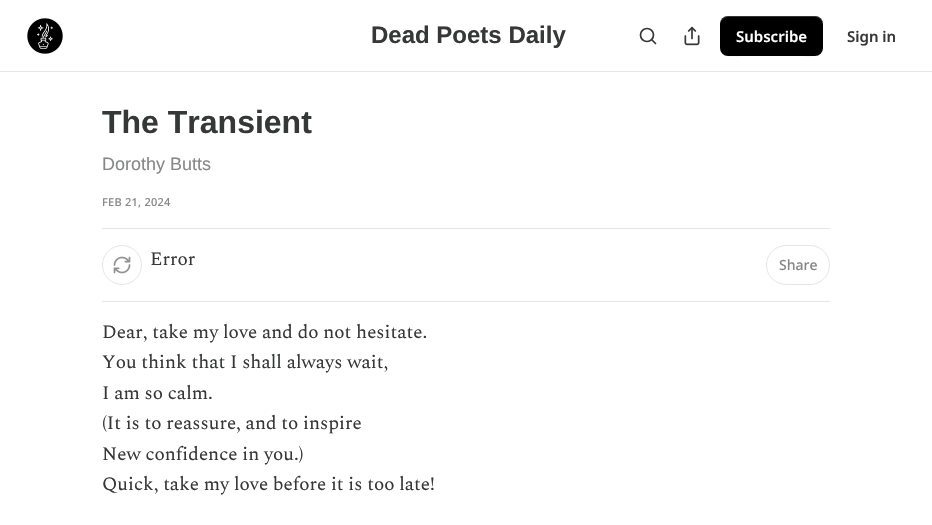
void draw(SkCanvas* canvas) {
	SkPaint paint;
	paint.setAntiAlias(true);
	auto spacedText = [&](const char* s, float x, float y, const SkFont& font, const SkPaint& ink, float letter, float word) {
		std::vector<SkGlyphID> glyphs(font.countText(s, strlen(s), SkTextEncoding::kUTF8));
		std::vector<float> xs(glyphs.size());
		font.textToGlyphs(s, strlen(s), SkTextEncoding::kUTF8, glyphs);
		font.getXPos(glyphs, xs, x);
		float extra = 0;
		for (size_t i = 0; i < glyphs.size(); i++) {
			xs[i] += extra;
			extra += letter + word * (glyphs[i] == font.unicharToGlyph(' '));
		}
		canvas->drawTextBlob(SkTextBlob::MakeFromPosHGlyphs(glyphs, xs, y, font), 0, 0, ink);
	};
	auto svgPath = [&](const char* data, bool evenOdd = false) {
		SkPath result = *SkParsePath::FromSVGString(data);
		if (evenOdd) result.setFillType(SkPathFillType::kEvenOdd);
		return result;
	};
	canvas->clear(0xffffffff);
	paint.setColor(0xffe6e6e6);
	canvas->drawRect(SkRect::MakeXYWH(0, 71, 932, 1), paint);
	canvas->drawImageRect(SkImages::DeferredFromEncodedData(SkData::MakeFromFileName("img1.png")), SkRect::MakeXYWH(27, 18, 36, 36), SkSamplingOptions());
	SkFont f1(fontMgr->matchFamilyStyle("Liberation Sans", SkFontStyle::Bold()), 24);
	f1.setSubpixel(true);
	paint.setColor(0xff363737);
	canvas->drawString("Dead Poets Daily", 371, 43, f1, paint);
	paint.setStroke(true);
	paint.setStrokeWidth(1.7);
	canvas->drawCircle(647, 35, 6.5, paint);
	paint.setStrokeCap(SkPaint::kRound_Cap);
	paint.setStrokeJoin(SkPaint::kRound_Join);
	canvas->drawPath(svgPath("M655.5 43.5L652 40"), paint);
	canvas->drawImageRect(SkImages::DeferredFromEncodedData(SkData::MakeFromFileName("img2.png")), SkRect::MakeXYWH(684, 26, 16, 20), SkSamplingOptions());
	paint.setStroke(false);
	paint.setColor(0xff000000);
	canvas->drawRoundRect(SkRect::MakeXYWH(720, 16, 103, 40), 8, 8, paint);
	paint.setColor(0x1a000000);
	canvas->drawPath(svgPath("M720 47C720 59 734 56 742 56H800C809 56 823 59 823 47C823 51 819 55 815 55H728C724 55 720 51 720 47Z"), paint);
	paint.setColor(0x33ffffff);
	canvas->drawPath(svgPath("M728 17H815C819 17 823 21 823 25C823 13 809 16 800 16H742C734 16 720 13 720 25C720 21 724 17 728 17Z"), paint);
	SkFont f2(fontMgr->matchFamilyStyle("Noto Sans", SkFontStyle(600, SkFontStyle::kNormal_Width, SkFontStyle::kUpright_Slant)), 15);
	f2.setSubpixel(true);
	paint.setColor(0xffffffff);
	canvas->drawString("Subscribe", 736, 42, f2, paint);
	paint.setColor(0xff363737);
	canvas->drawString("Sign in", 847, 42, f2, paint);
	SkFont f3(fontMgr->matchFamilyStyle("Liberation Sans", SkFontStyle::Bold()), 32);
	f3.setSubpixel(true);
	canvas->drawString("The Transient", 102, 133, f3, paint);
	SkFont f4(fontMgr->matchFamilyStyle("Liberation Sans", SkFontStyle::Normal()), 18);
	f4.setSubpixel(true);
	paint.setColor(0xff868787);
	canvas->drawString("Dorothy Butts", 102, 170, f4, paint);
	SkFont f5(fontMgr->matchFamilyStyle("Noto Sans", SkFontStyle(500, SkFontStyle::kNormal_Width, SkFontStyle::kUpright_Slant)), 11);
	f5.setSubpixel(true);
	spacedText("FEB 21, 2024", 102, 206, f5, paint, 0.25, 0);
	paint.setColor(0xffe6e6e6);
	canvas->drawRect(SkRect::MakeXYWH(102, 228, 728, 1), paint);
	canvas->drawRect(SkRect::MakeXYWH(102, 301, 728, 1), paint);
	paint.setStroke(true);
	paint.setStrokeWidth(1);
	paint.setStrokeCap(SkPaint::kButt_Cap);
	paint.setStrokeJoin(SkPaint::kMiter_Join);
	canvas->drawCircle(122, 265, 19.5, paint);
	canvas->drawImageRect(SkImages::DeferredFromEncodedData(SkData::MakeFromFileName("img3.png")), SkRect::MakeXYWH(113, 256, 18, 18), SkSamplingOptions());
	SkFont f6(fontMgr->matchFamilyStyle("Spectral", SkFontStyle::Normal()), 19);
	f6.setSubpixel(true);
	paint.setStroke(false);
	paint.setColor(0xff363737);
	canvas->drawString("Error", 150, 265, f6, paint);
	paint.setStroke(true);
	paint.setColor(0xffe6e6e6);
	canvas->drawRoundRect(SkRect::MakeXYWH(766.5, 245.5, 63, 39), 19.5, 19.5, paint);
	SkFont f7(fontMgr->matchFamilyStyle("Noto Sans", SkFontStyle(500, SkFontStyle::kNormal_Width, SkFontStyle::kUpright_Slant)), 14);
	f7.setSubpixel(true);
	paint.setStroke(false);
	paint.setColor(0xff868787);
	canvas->drawString("Share", 779, 270, f7, paint);
	paint.setColor(0xff363737);
	canvas->drawString("Dear, take my love and do not hesitate.", 102, 338, f6, paint);
	canvas->drawString("You think that I shall always wait,", 102, 368, f6, paint);
	canvas->drawString("I am so calm.", 102, 399, f6, paint);
	canvas->drawString("(It is to reassure, and to inspire", 102, 429, f6, paint);
	canvas->drawString("New confidence in you.)", 102, 460, f6, paint);
	canvas->drawString("Quick, take my love before it is too late!", 102, 490, f6, paint);
}
